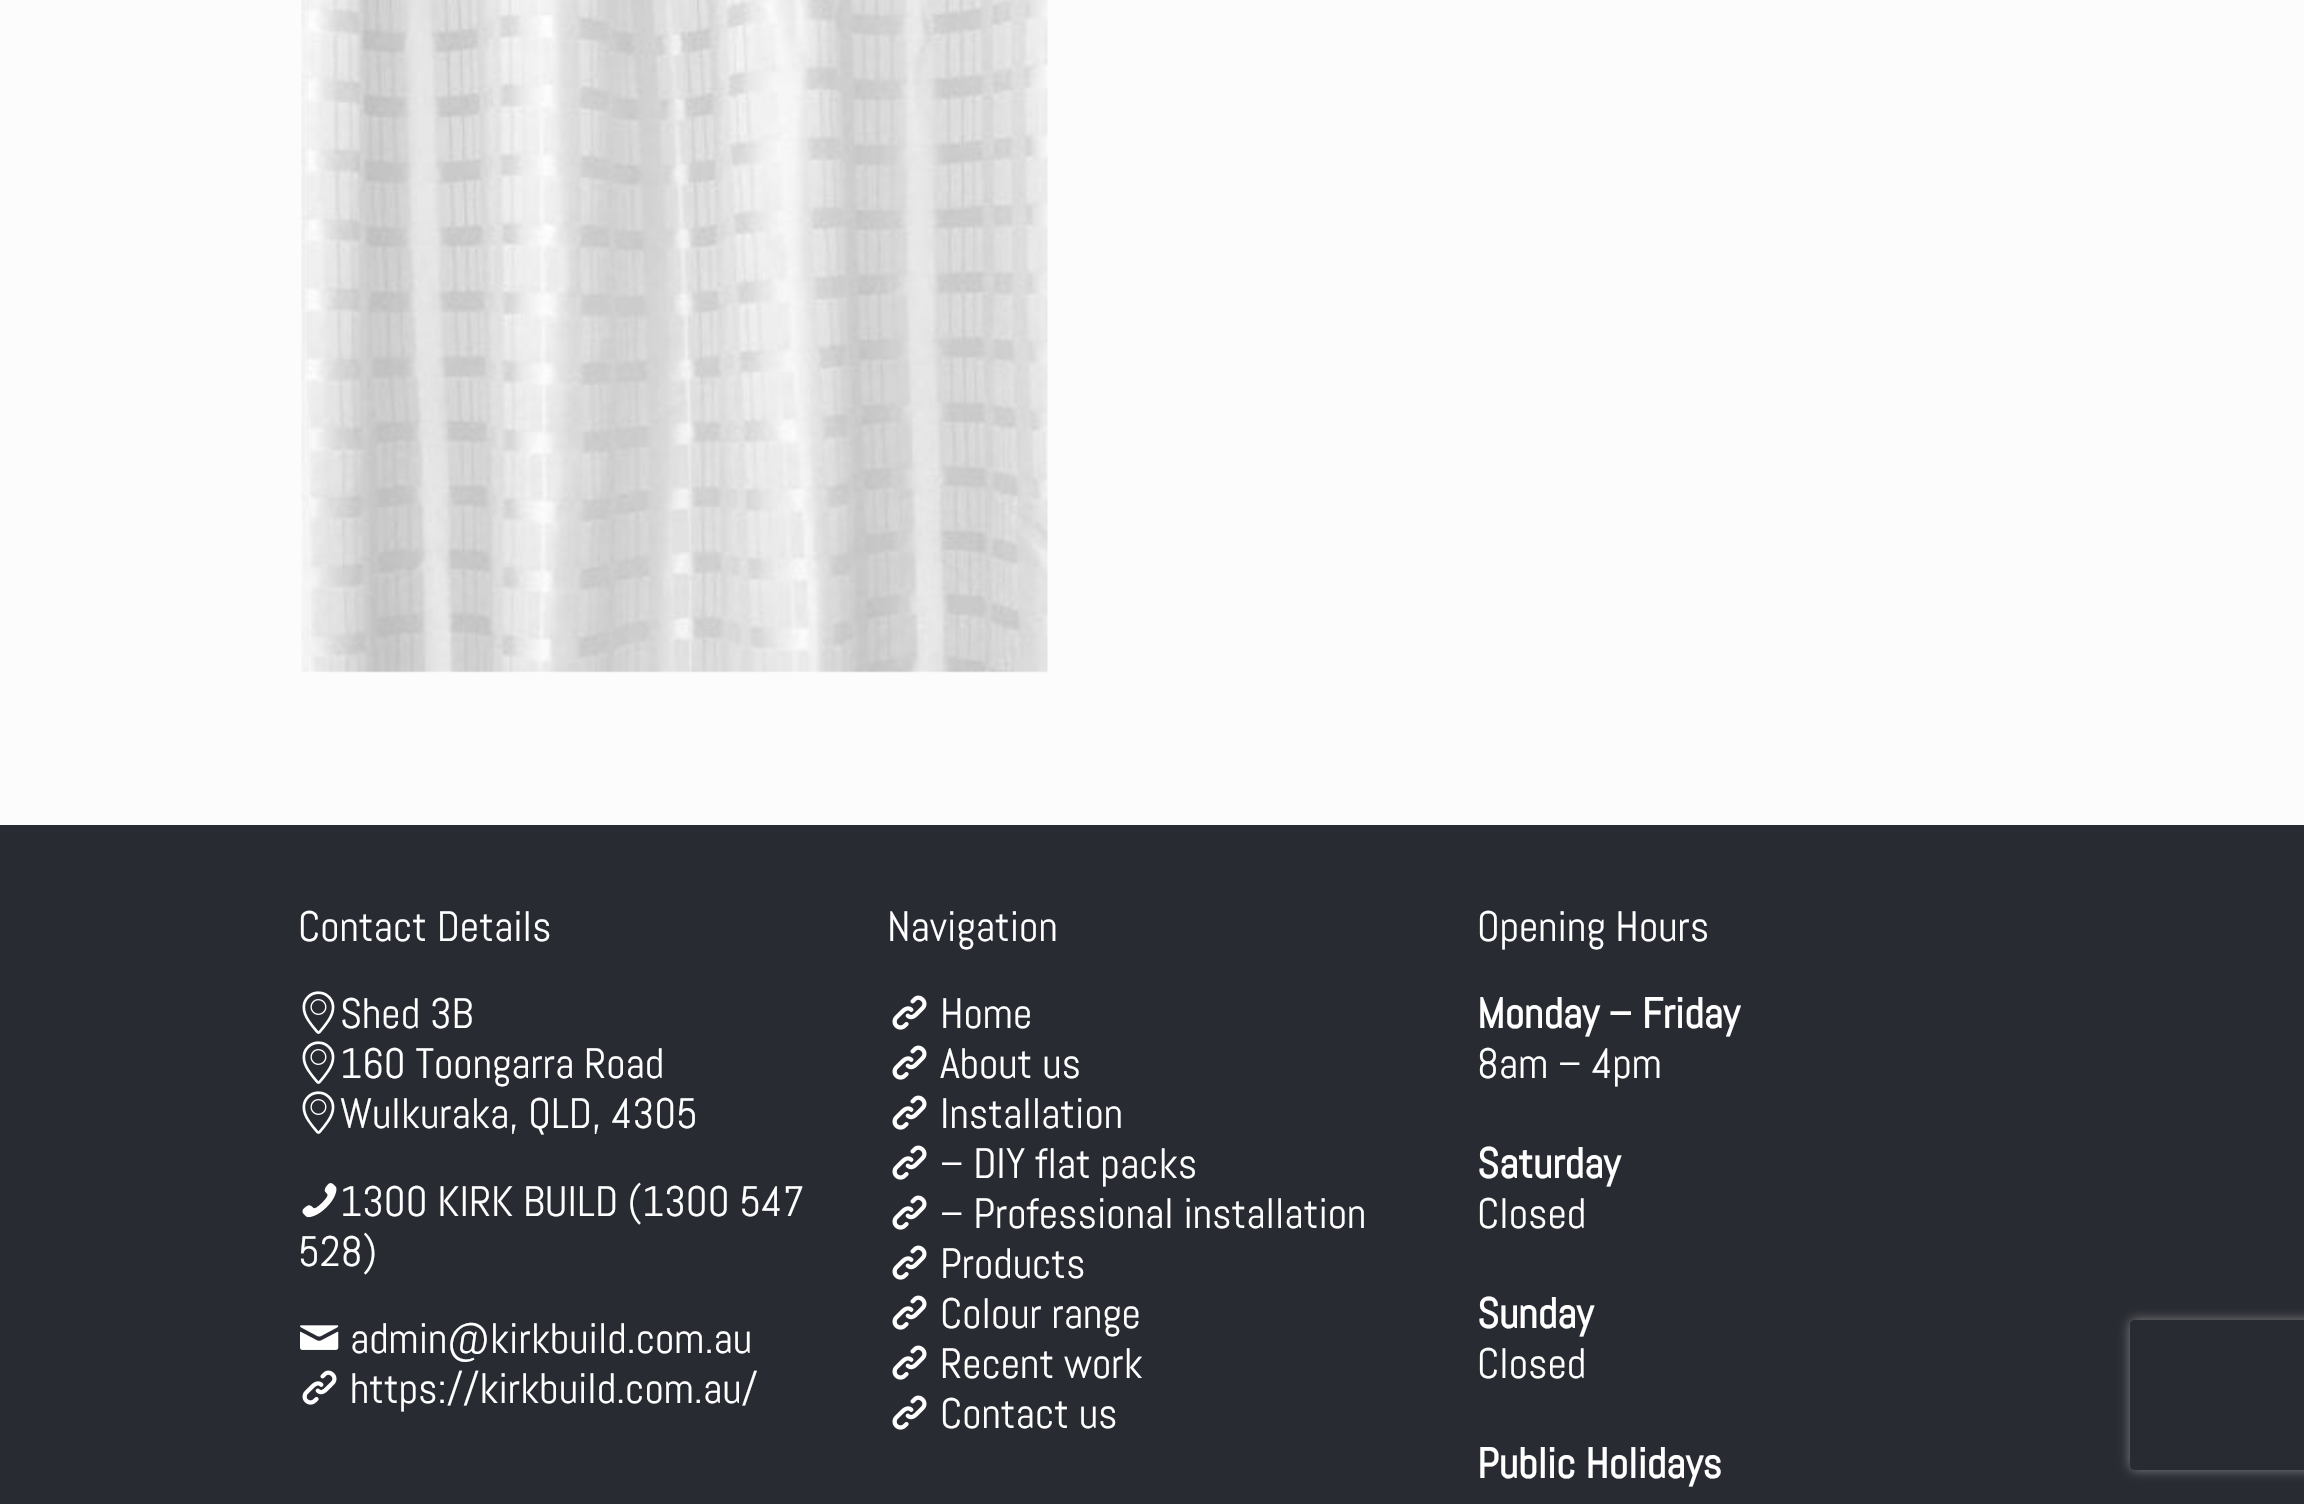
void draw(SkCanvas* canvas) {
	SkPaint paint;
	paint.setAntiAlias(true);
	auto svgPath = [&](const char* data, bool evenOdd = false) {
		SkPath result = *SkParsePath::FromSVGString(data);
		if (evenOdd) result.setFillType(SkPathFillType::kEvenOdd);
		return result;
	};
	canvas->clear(0xfffcfcfc);
	canvas->drawImageRect(SkImages::DeferredFromEncodedData(SkData::MakeFromFileName("img1.png")), SkRect::MakeXYWH(301, 0, 747, 673), SkSamplingOptions());
	paint.setColor(0xff292b33);
	canvas->drawRect(SkRect::MakeXYWH(0, 825, 2304, 679), paint);
	SkFont f1(fontMgr->matchFamilyStyle("Abel", SkFontStyle::Normal()), 42.5);
	f1.setSubpixel(true);
	paint.setColor(0xffffffff);
	canvas->drawString("Contact Details", 298, 941, f1, paint);
	canvas->drawImageRect(SkImages::DeferredFromEncodedData(SkData::MakeFromFileName("img2.png")), SkRect::MakeXYWH(302, 991, 33, 43), SkSamplingOptions());
	canvas->drawString("Shed 3B", 340, 1028, f1, paint);
	canvas->drawImageRect(SkImages::DeferredFromEncodedData(SkData::MakeFromFileName("img2.png")), SkRect::MakeXYWH(302, 1041, 33, 43), SkSamplingOptions());
	canvas->drawString("160 Toongarra Road", 340, 1078, f1, paint);
	canvas->drawImageRect(SkImages::DeferredFromEncodedData(SkData::MakeFromFileName("img2.png")), SkRect::MakeXYWH(302, 1091, 33, 43), SkSamplingOptions());
	canvas->drawString("Wulkuraka, QLD, 4305", 340, 1128, f1, paint);
	canvas->drawImageRect(SkImages::DeferredFromEncodedData(SkData::MakeFromFileName("img3.png")), SkRect::MakeXYWH(302, 1183, 35, 35), SkSamplingOptions());
	canvas->drawString("1300 KIRK BUILD (1300 547", 340, 1216, f1, paint);
	canvas->drawString("528)", 298, 1266, f1, paint);
	canvas->drawImageRect(SkImages::DeferredFromEncodedData(SkData::MakeFromFileName("img4.png")), SkRect::MakeXYWH(300, 1325, 39, 25), SkSamplingOptions());
	canvas->drawString("admin@kirkbuild.com.au", 350, 1353, f1, paint);
	canvas->drawImageRect(SkImages::DeferredFromEncodedData(SkData::MakeFromFileName("img5.png")), SkRect::MakeXYWH(302, 1370, 35, 35), SkSamplingOptions());
	canvas->drawString("https://kirkbuild.com.au/", 350, 1403, f1, paint);
	canvas->drawString("Navigation", 887, 941, f1, paint);
	canvas->drawImageRect(SkImages::DeferredFromEncodedData(SkData::MakeFromFileName("img5.png")), SkRect::MakeXYWH(892, 995, 35, 35), SkSamplingOptions());
	canvas->drawString("Home", 940, 1028, f1, paint);
	canvas->drawImageRect(SkImages::DeferredFromEncodedData(SkData::MakeFromFileName("img5.png")), SkRect::MakeXYWH(892, 1045, 35, 35), SkSamplingOptions());
	canvas->drawString("About us", 940, 1078, f1, paint);
	canvas->drawImageRect(SkImages::DeferredFromEncodedData(SkData::MakeFromFileName("img5.png")), SkRect::MakeXYWH(892, 1095, 35, 35), SkSamplingOptions());
	canvas->drawString("Installation", 940, 1128, f1, paint);
	canvas->drawImageRect(SkImages::DeferredFromEncodedData(SkData::MakeFromFileName("img5.png")), SkRect::MakeXYWH(892, 1145, 35, 35), SkSamplingOptions());
	canvas->drawString("– DIY flat packs", 940, 1178, f1, paint);
	canvas->drawImageRect(SkImages::DeferredFromEncodedData(SkData::MakeFromFileName("img5.png")), SkRect::MakeXYWH(892, 1195, 35, 35), SkSamplingOptions());
	canvas->drawString("– Professional installation", 940, 1228, f1, paint);
	canvas->drawImageRect(SkImages::DeferredFromEncodedData(SkData::MakeFromFileName("img5.png")), SkRect::MakeXYWH(892, 1245, 35, 35), SkSamplingOptions());
	canvas->drawString("Products", 940, 1278, f1, paint);
	canvas->drawImageRect(SkImages::DeferredFromEncodedData(SkData::MakeFromFileName("img5.png")), SkRect::MakeXYWH(892, 1295, 35, 35), SkSamplingOptions());
	canvas->drawString("Colour range", 940, 1328, f1, paint);
	canvas->drawImageRect(SkImages::DeferredFromEncodedData(SkData::MakeFromFileName("img5.png")), SkRect::MakeXYWH(892, 1345, 35, 35), SkSamplingOptions());
	canvas->drawString("Recent work", 940, 1378, f1, paint);
	canvas->drawImageRect(SkImages::DeferredFromEncodedData(SkData::MakeFromFileName("img5.png")), SkRect::MakeXYWH(892, 1395, 35, 35), SkSamplingOptions());
	canvas->drawString("Contact us", 940, 1428, f1, paint);
	canvas->drawString("Opening Hours", 1477, 941, f1, paint);
	SkFont f2(fontMgr->matchFamilyStyle("Abel", SkFontStyle::Bold()), 42.5);
	f2.setSubpixel(true);
	canvas->drawString("Monday – Friday", 1477, 1028, f2, paint);
	canvas->drawString("8am – 4pm", 1477, 1078, f1, paint);
	canvas->drawString("Saturday", 1477, 1178, f2, paint);
	canvas->drawString("Closed", 1477, 1228, f1, paint);
	canvas->drawString("Sunday", 1477, 1328, f2, paint);
	canvas->drawString("Closed", 1477, 1378, f1, paint);
	canvas->drawString("Public Holidays", 1477, 1478, f2, paint);
	canvas->save();
	canvas->clipPath(svgPath("M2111 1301H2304V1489H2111ZM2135 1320H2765C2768 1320 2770 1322 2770 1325V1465C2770 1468 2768 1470 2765 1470H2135C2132 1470 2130 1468 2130 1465V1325C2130 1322 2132 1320 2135 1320Z", true), true);
	paint.setColor(0xff808080);
	paint.setMaskFilter(SkMaskFilter::MakeBlur(kNormal_SkBlurStyle, 6));
	canvas->drawRoundRect(SkRect::MakeXYWH(2130, 1320, 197, 150), 5, 5, paint);
	paint.setMaskFilter(nullptr);
	canvas->restore();
}
